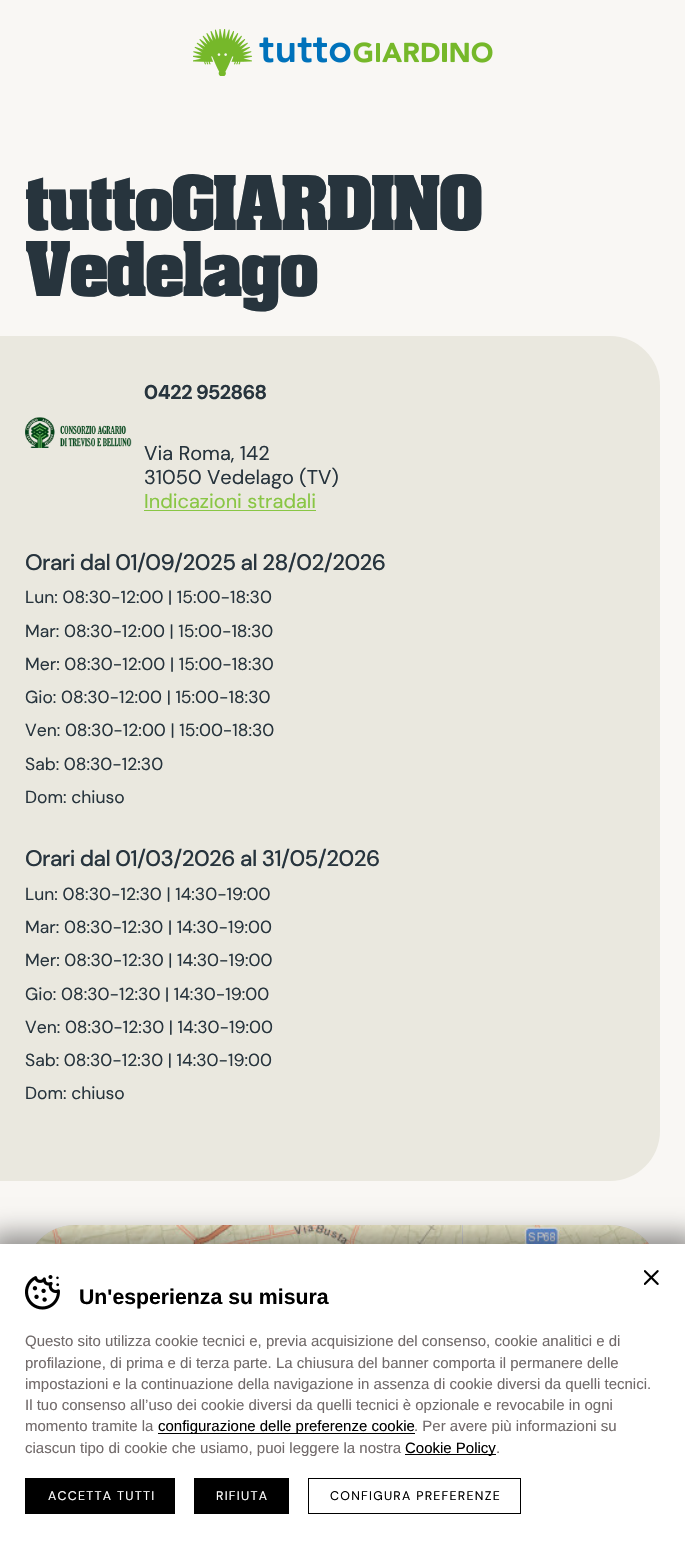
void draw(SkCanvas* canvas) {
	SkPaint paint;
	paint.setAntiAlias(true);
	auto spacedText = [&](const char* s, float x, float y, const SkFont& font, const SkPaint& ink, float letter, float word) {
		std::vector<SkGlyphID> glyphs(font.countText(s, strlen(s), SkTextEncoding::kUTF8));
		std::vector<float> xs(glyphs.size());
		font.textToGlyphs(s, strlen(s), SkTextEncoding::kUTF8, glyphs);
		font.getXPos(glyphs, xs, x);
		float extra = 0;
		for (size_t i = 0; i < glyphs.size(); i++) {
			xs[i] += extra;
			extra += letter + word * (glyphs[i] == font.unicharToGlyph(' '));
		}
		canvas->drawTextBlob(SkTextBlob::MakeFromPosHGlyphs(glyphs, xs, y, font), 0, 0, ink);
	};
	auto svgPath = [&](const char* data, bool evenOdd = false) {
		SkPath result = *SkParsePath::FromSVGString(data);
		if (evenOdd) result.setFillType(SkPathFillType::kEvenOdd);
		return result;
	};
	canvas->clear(0xfff9f7f4);
	canvas->drawImageRect(SkImages::DeferredFromEncodedData(SkData::MakeFromFileName("img1.png")), SkRect::MakeXYWH(193, 29, 300, 47), SkSamplingOptions());
	SkFont f1(fontMgr->matchFamilyStyle("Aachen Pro", SkFontStyle::Bold()), 62.5);
	f1.setSubpixel(true);
	paint.setColor(0xff27343d);
	spacedText("tuttoGIARDINO", 25, 230, f1, paint, -1.25, 0);
	spacedText("Vedelago", 25, 296, f1, paint, -1.25, 0);
	paint.setColor(0xffeae8df);
	canvas->drawPath(svgPath("M25 336H610C637.5 336 660 358.5 660 386V1131C660 1158.5 637.5 1181 610 1181H25Z"), paint);
	canvas->drawRect(SkRect::MakeXYWH(0, 336, 25, 845), paint);
	SkFont f2(fontMgr->matchFamilyStyle("DM Sans", SkFontStyle::Bold()), 20);
	f2.setSubpixel(true);
	paint.setColor(0xff27343d);
	canvas->drawString("0422 952868", 144, 399, f2, paint);
	canvas->drawImageRect(SkImages::DeferredFromEncodedData(SkData::MakeFromFileName("img2.png")), SkRect::MakeXYWH(25, 417, 107, 31), SkSamplingOptions());
	SkFont f3(fontMgr->matchFamilyStyle("DM Sans", SkFontStyle::Normal()), 20);
	f3.setSubpixel(true);
	canvas->drawString("Via Roma, 142", 144, 460, f3, paint);
	canvas->drawString("31050 Vedelago (TV)", 144, 484, f3, paint);
	paint.setColor(0xff89c644);
	canvas->drawString("Indicazioni stradali", 144, 508, f3, paint);
	canvas->drawRect(SkRect::MakeXYWH(144, 510, 172, 1), paint);
	SkFont f4(fontMgr->matchFamilyStyle("DM Sans", SkFontStyle(500, SkFontStyle::kNormal_Width, SkFontStyle::kUpright_Slant)), 22.5);
	f4.setSubpixel(true);
	paint.setColor(0xff27343d);
	spacedText("Orari dal 01/09/2025 al 28/02/2026", 25, 570, f4, paint, -0.6, 0);
	SkFont f5(fontMgr->matchFamilyStyle("DM Sans", SkFontStyle::Normal()), 17.5);
	f5.setSubpixel(true);
	canvas->drawString("Lun: 08:30-12:00 | 15:00-18:30", 25, 603, f5, paint);
	canvas->drawString("Mar: 08:30-12:00 | 15:00-18:30", 25, 637, f5, paint);
	canvas->drawString("Mer: 08:30-12:00 | 15:00-18:30", 25, 670, f5, paint);
	canvas->drawString("Gio: 08:30-12:00 | 15:00-18:30", 25, 703, f5, paint);
	canvas->drawString("Ven: 08:30-12:00 | 15:00-18:30", 25, 736, f5, paint);
	canvas->drawString("Sab: 08:30-12:30", 25, 770, f5, paint);
	canvas->drawString("Dom: chiuso", 25, 803, f5, paint);
	spacedText("Orari dal 01/03/2026 al 31/05/2026", 25, 866, f4, paint, -0.6, 0);
	canvas->drawString("Lun: 08:30-12:30 | 14:30-19:00", 25, 900, f5, paint);
	canvas->drawString("Mar: 08:30-12:30 | 14:30-19:00", 25, 933, f5, paint);
	canvas->drawString("Mer: 08:30-12:30 | 14:30-19:00", 25, 966, f5, paint);
	canvas->drawString("Gio: 08:30-12:30 | 14:30-19:00", 25, 1000, f5, paint);
	canvas->drawString("Ven: 08:30-12:30 | 14:30-19:00", 25, 1033, f5, paint);
	canvas->drawString("Sab: 08:30-12:30 | 14:30-19:00", 25, 1066, f5, paint);
	canvas->drawString("Dom: chiuso", 25, 1099, f5, paint);
	paint.setColor(0xffdddddd);
	canvas->drawRoundRect(SkRect::MakeXYWH(25, 1225, 635, 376), 50, 50, paint);
	canvas->drawImageRect(SkImages::DeferredFromEncodedData(SkData::MakeFromFileName("img3.png")), SkRect::MakeXYWH(36, 1225, 107, 19), SkSamplingOptions());
	canvas->drawImageRect(SkImages::DeferredFromEncodedData(SkData::MakeFromFileName("img4.png")), SkRect::MakeXYWH(143, 1225, 319, 19), SkSamplingOptions());
	canvas->drawImageRect(SkImages::DeferredFromEncodedData(SkData::MakeFromFileName("img5.png")), SkRect::MakeXYWH(463, 1225, 186, 19), SkSamplingOptions());
	paint.setColor(0x6e000000);
	paint.setMaskFilter(SkMaskFilter::MakeBlur(kNormal_SkBlurStyle, 12.5));
	canvas->drawRect(SkRect::MakeXYWH(-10, 1234, 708, 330), paint);
	paint.setMaskFilter(nullptr);
	paint.setColor(0xffffffff);
	canvas->drawRect(SkRect::MakeXYWH(0, 1244, 685, 307), paint);
	canvas->drawImageRect(SkImages::DeferredFromEncodedData(SkData::MakeFromFileName("img6.png")), SkRect::MakeXYWH(644, 1270, 15, 15), SkSamplingOptions());
	canvas->drawImageRect(SkImages::DeferredFromEncodedData(SkData::MakeFromFileName("img7.png")), SkRect::MakeXYWH(25, 1275, 35, 35), SkSamplingOptions());
	SkFont f6(fontMgr->matchFamilyStyle("Liberation Sans", SkFontStyle::Bold()), 21.25);
	f6.setSubpixel(true);
	paint.setColor(0xff000000);
	canvas->drawString("Un'esperienza su misura", 79, 1304, f6, paint);
	SkFont f7(fontMgr->matchFamilyStyle("Liberation Sans", SkFontStyle::Normal()), 15);
	f7.setSubpixel(true);
	paint.setColor(0xff716a6a);
	canvas->drawString("Questo sito utilizza cookie tecnici e, previa acquisizione del consenso, cookie analitici e di", 25, 1346, f7, paint);
	canvas->drawString("profilazione, di prima e di terza parte. La chiusura del banner comporta il permanere delle", 25, 1368, f7, paint);
	canvas->drawString("impostazioni e la continuazione della navigazione in assenza di cookie diversi da quelli tecnici.", 25, 1389, f7, paint);
	canvas->drawString("Il tuo consenso all’uso dei cookie diversi da quelli tecnici è opzionale e revocabile in ogni", 25, 1410, f7, paint);
	canvas->drawString("momento tramite la", 25, 1431, f7, paint);
	paint.setColor(0xff000000);
	canvas->drawRect(SkRect::MakeXYWH(158, 1433, 257, 1), paint);
	canvas->drawString("configurazione delle preferenze cookie", 158, 1431, f7, paint);
	paint.setColor(0xff716a6a);
	canvas->drawString(". Per avere più informazioni su", 414, 1431, f7, paint);
	canvas->drawString("ciascun tipo di cookie che usiamo, puoi leggere la nostra", 25, 1453, f7, paint);
	paint.setColor(0xff000000);
	canvas->drawRect(SkRect::MakeXYWH(405, 1454, 91, 1), paint);
	canvas->drawString("Cookie Policy", 405, 1453, f7, paint);
	paint.setColor(0xff716a6a);
	canvas->drawString(".", 496, 1453, f7, paint);
	paint.setColor(0xff000000);
	canvas->drawRect(SkRect::MakeXYWH(25, 1478, 150, 36), paint);
	SkFont f8(fontMgr->matchFamilyStyle("DM Sans", SkFontStyle::Normal()), 12.5);
	f8.setSubpixel(true);
	paint.setColor(0xffffffff);
	spacedText("ACCETTA TUTTI", 48, 1500, f8, paint, 1.25, 0);
	paint.setColor(0xff000000);
	canvas->drawRect(SkRect::MakeXYWH(194, 1478, 95, 36), paint);
	paint.setColor(0xffffffff);
	spacedText("RIFIUTA", 216, 1500, f8, paint, 1.25, 0);
	paint.setStroke(true);
	paint.setStrokeWidth(1);
	paint.setColor(0xff000000);
	canvas->drawRect(SkRect::MakeXYWH(308.5, 1478.5, 212, 35), paint);
	paint.setStroke(false);
	spacedText("CONFIGURA PREFERENZE", 330, 1500, f8, paint, 1.25, 0);
}
